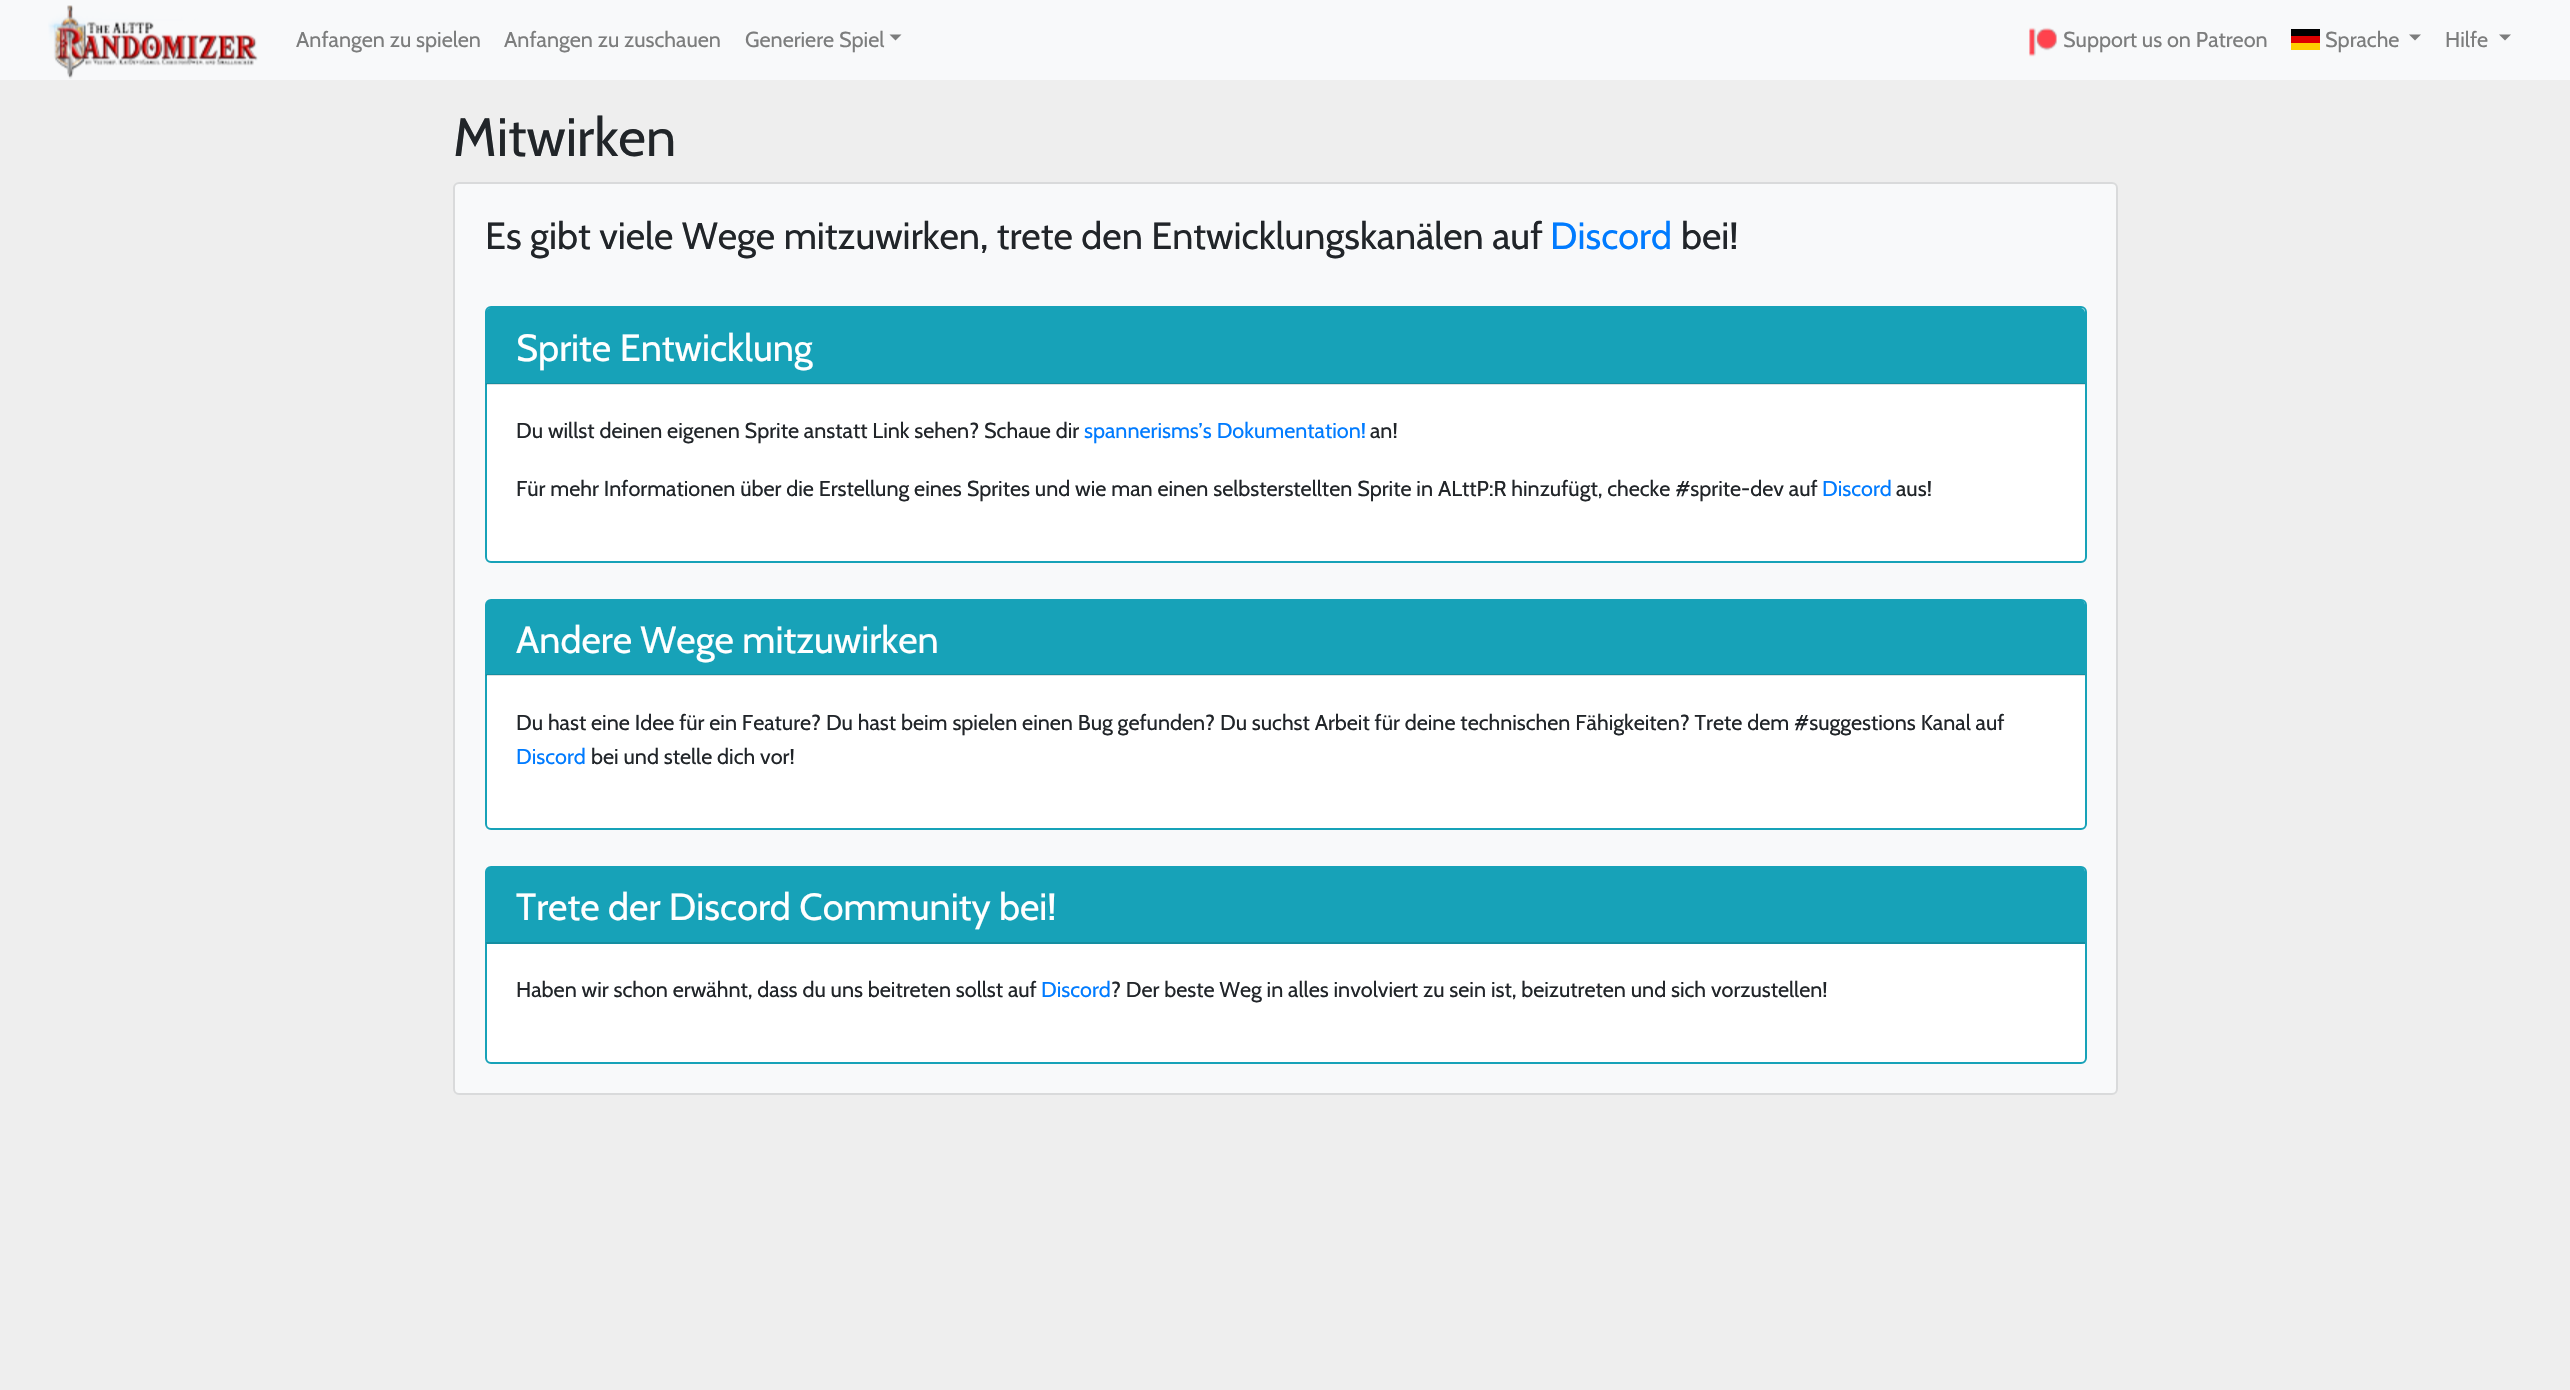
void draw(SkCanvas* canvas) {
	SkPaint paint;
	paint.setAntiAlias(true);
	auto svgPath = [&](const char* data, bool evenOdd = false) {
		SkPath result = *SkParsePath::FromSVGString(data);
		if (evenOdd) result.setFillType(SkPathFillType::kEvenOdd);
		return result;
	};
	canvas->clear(0xffeeeeee);
	paint.setColor(0xfff8f9fa);
	canvas->drawRect(SkRect::MakeXYWH(0, 0, 2570, 80), paint);
	canvas->drawImageRect(SkImages::DeferredFromEncodedData(SkData::MakeFromFileName("img1.png")), SkRect::MakeXYWH(48, 5, 210, 74), SkSamplingOptions());
	SkFont f1(fontMgr->matchFamilyStyle("Cabin", SkFontStyle::Normal()), 21.6);
	f1.setSubpixel(true);
	paint.setColor(0xff7c7d7d);
	canvas->drawString("Anfangen zu spielen", 296, 47, f1, paint);
	canvas->drawString("Anfangen zu zuschauen", 504, 47, f1, paint);
	canvas->drawString("Generiere Spiel", 745, 47, f1, paint);
	canvas->drawPath(svgPath("M889.5 34.5H901.5L895.5 40.5Z"), paint);
	canvas->drawImageRect(SkImages::DeferredFromEncodedData(SkData::MakeFromFileName("img2.png")), SkRect::MakeXYWH(2029, 27, 28, 30), SkSamplingOptions());
	canvas->drawString("Support us on Patreon", 2063, 47, f1, paint);
	paint.setColor(0xffffce00);
	canvas->drawRect(SkRect::MakeXYWH(2291, 43, 29, 7), paint);
	paint.setColor(0xff000000);
	canvas->drawRect(SkRect::MakeXYWH(2291, 29, 29, 7), paint);
	paint.setColor(0xffdd0000);
	canvas->drawRect(SkRect::MakeXYWH(2291, 36, 29, 7), paint);
	paint.setColor(0xff7c7d7d);
	canvas->drawString("Sprache", 2325, 47, f1, paint);
	canvas->drawPath(svgPath("M2409 34.5H2421L2415 40.5Z"), paint);
	canvas->drawString("Hilfe", 2445, 47, f1, paint);
	canvas->drawPath(svgPath("M2499 34.5H2511L2505 40.5Z"), paint);
	SkFont f2(fontMgr->matchFamilyStyle("Cabin", SkFontStyle::Normal()), 54);
	f2.setSubpixel(true);
	paint.setColor(0xff212529);
	canvas->drawString("Mitwirken", 453, 156, f2, paint);
	paint.setColor(0xfff8f9fa);
	canvas->drawRoundRect(SkRect::MakeXYWH(453, 182, 1665, 913), 6, 6, paint);
	paint.setStroke(true);
	paint.setStrokeWidth(2);
	paint.setColor(0x1f000000);
	canvas->drawRoundRect(SkRect::MakeXYWH(454, 183, 1663, 911), 5, 5, paint);
	SkFont f3(fontMgr->matchFamilyStyle("Cabin", SkFontStyle::Normal()), 37.8);
	f3.setSubpixel(true);
	paint.setStroke(false);
	paint.setColor(0xff212529);
	canvas->drawString("Es gibt viele Wege mitzuwirken, trete den Entwicklungskanälen auf", 485, 249, f3, paint);
	paint.setColor(0xff007bff);
	canvas->drawString("Discord", 1550, 249, f3, paint);
	paint.setColor(0xff212529);
	canvas->drawString("bei!", 1681, 249, f3, paint);
	paint.setColor(0xffffffff);
	canvas->drawRoundRect(SkRect::MakeXYWH(486, 307, 1600, 255), 5, 5, paint);
	paint.setStroke(true);
	paint.setColor(0xff17a2b8);
	canvas->drawRoundRect(SkRect::MakeXYWH(486, 307, 1600, 255), 5, 5, paint);
	paint.setStroke(false);
	canvas->drawPath(svgPath("M491 308H2080C2083 308 2085 310 2085 313V384H486V313C486 310 488 308 491 308Z"), paint);
	paint.setColor(0x1f000000);
	canvas->drawRect(SkRect::MakeXYWH(486, 383, 1599, 2), paint);
	paint.setColor(0xffffffff);
	canvas->drawString("Sprite Entwicklung", 516, 361, f3, paint);
	paint.setColor(0xff212529);
	canvas->drawString("Du willst deinen eigenen Sprite anstatt Link sehen? Schaue dir", 516, 438, f1, paint);
	paint.setColor(0xff007bff);
	canvas->drawString("spannerisms’s Dokumentation!", 1084, 438, f1, paint);
	paint.setColor(0xff212529);
	canvas->drawString("an!", 1370, 438, f1, paint);
	canvas->drawString("Für mehr Informationen über die Erstellung eines Sprites und wie man einen selbsterstellten Sprite in ALttP:R hinzufügt, checke #sprite-dev auf", 516, 496, f1, paint);
	paint.setColor(0xff007bff);
	canvas->drawString("Discord", 1822, 496, f1, paint);
	paint.setColor(0xff212529);
	canvas->drawString("aus!", 1896, 496, f1, paint);
	paint.setColor(0xffffffff);
	canvas->drawRoundRect(SkRect::MakeXYWH(486, 600, 1600, 229), 5, 5, paint);
	paint.setStroke(true);
	paint.setColor(0xff17a2b8);
	canvas->drawRoundRect(SkRect::MakeXYWH(486, 600, 1600, 229), 5, 5, paint);
	paint.setStroke(false);
	canvas->drawPath(svgPath("M491 600H2080C2083 600 2085 602 2085 605V675H486V605C486 602 488 600 491 600Z"), paint);
	paint.setColor(0x1f000000);
	canvas->drawRect(SkRect::MakeXYWH(486, 674, 1599, 2), paint);
	paint.setColor(0xffffffff);
	canvas->drawString("Andere Wege mitzuwirken", 516, 653, f3, paint);
	paint.setColor(0xff212529);
	canvas->drawString("Du hast eine Idee für ein Feature? Du hast beim spielen einen Bug gefunden? Du suchst Arbeit für deine technischen Fähigkeiten? Trete dem #suggestions Kanal auf", 516, 730, f1, paint);
	paint.setColor(0xff007bff);
	canvas->drawString("Discord", 516, 764, f1, paint);
	paint.setColor(0xff212529);
	canvas->drawString("bei und stelle dich vor!", 591, 764, f1, paint);
	paint.setColor(0xffffffff);
	canvas->drawRoundRect(SkRect::MakeXYWH(486, 867, 1600, 196), 5, 5, paint);
	paint.setStroke(true);
	paint.setColor(0xff17a2b8);
	canvas->drawRoundRect(SkRect::MakeXYWH(486, 867, 1600, 196), 5, 5, paint);
	paint.setStroke(false);
	canvas->drawPath(svgPath("M491 867H2080C2083 867 2085 869 2085 872V944H486V872C486 869 488 867 491 867Z"), paint);
	paint.setColor(0xff148ea1);
	canvas->drawRect(SkRect::MakeXYWH(486, 942, 1599, 2), paint);
	paint.setColor(0xffffffff);
	canvas->drawString("Trete der Discord Community bei!", 516, 920, f3, paint);
	paint.setColor(0xff212529);
	canvas->drawString("Haben wir schon erwähnt, dass du uns beitreten sollst auf", 516, 997, f1, paint);
	paint.setColor(0xff007bff);
	canvas->drawString("Discord", 1041, 997, f1, paint);
	paint.setColor(0xff212529);
	canvas->drawString("? Der beste Weg in alles involviert zu sein ist, beizutreten und sich vorzustellen!", 1111, 997, f1, paint);
}
